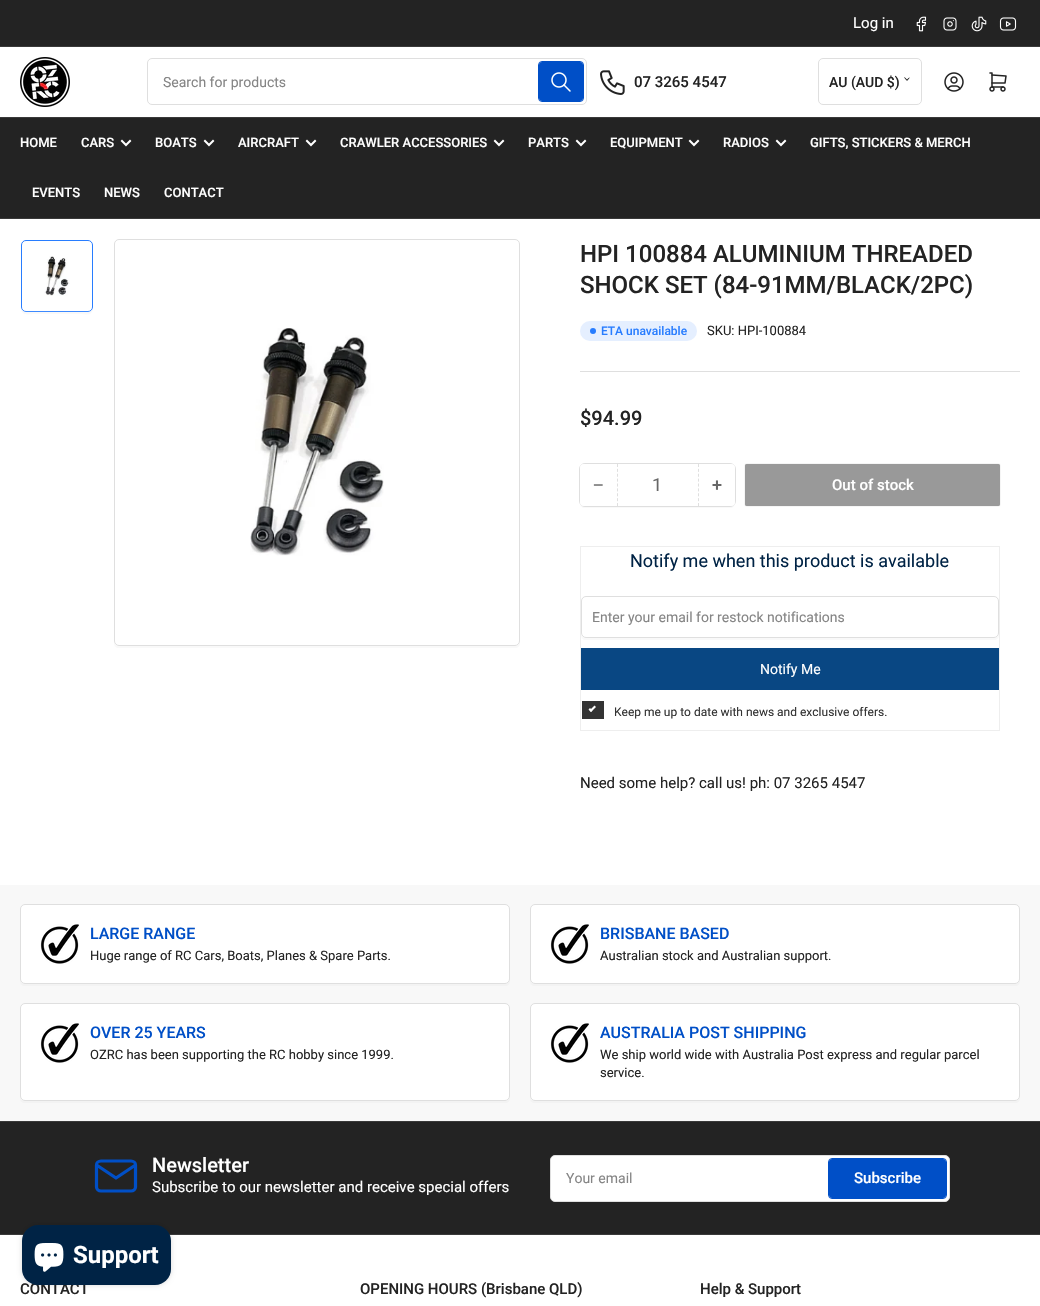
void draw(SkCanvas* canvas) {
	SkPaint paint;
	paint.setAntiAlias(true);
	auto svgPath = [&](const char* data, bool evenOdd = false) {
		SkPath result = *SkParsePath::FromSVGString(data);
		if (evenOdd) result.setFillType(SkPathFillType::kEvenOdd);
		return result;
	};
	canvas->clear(0xffffffff);
	paint.setColor(0xff232323);
	canvas->drawRect(SkRect::MakeXYWH(0, 0, 1040, 46), paint);
	paint.setColor(0xff393939);
	canvas->drawRect(SkRect::MakeXYWH(0, 46, 1040, 1), paint);
	SkFont f1(fontMgr->matchFamilyStyle("Roboto", SkFontStyle::Normal()), 15);
	f1.setSubpixel(true);
	paint.setColor(0xffffffff);
	canvas->drawString("Log in", 853, 28, f1, paint);
	canvas->drawImageRect(SkImages::DeferredFromEncodedData(SkData::MakeFromFileName("img1.png")), SkRect::MakeXYWH(916, 16, 11, 16), SkSamplingOptions());
	canvas->drawImageRect(SkImages::DeferredFromEncodedData(SkData::MakeFromFileName("img2.png")), SkRect::MakeXYWH(943, 17, 14, 14), SkSamplingOptions());
	canvas->drawImageRect(SkImages::DeferredFromEncodedData(SkData::MakeFromFileName("img3.png")), SkRect::MakeXYWH(971, 16, 16, 16), SkSamplingOptions());
	canvas->drawImageRect(SkImages::DeferredFromEncodedData(SkData::MakeFromFileName("img4.png")), SkRect::MakeXYWH(999, 17, 18, 14), SkSamplingOptions());
	canvas->drawImageRect(SkImages::DeferredFromEncodedData(SkData::MakeFromFileName("img5.png")), SkRect::MakeXYWH(20, 57, 50, 50), SkSamplingOptions());
	paint.setStroke(true);
	paint.setStrokeWidth(1);
	paint.setColor(0xffdfdfdf);
	canvas->drawRoundRect(SkRect::MakeXYWH(147.5, 58.5, 439, 46), 4.5, 4.5, paint);
	SkFont f2(fontMgr->matchFamilyStyle("Roboto", SkFontStyle::Normal()), 14);
	f2.setSubpixel(true);
	paint.setStroke(false);
	paint.setColor(0xff858585);
	canvas->drawString("Search for products", 163, 87, f2, paint);
	paint.setStroke(true);
	paint.setColor(0xff004fc7);
	canvas->drawRoundRect(SkRect::MakeXYWH(538.5, 61.5, 45, 40), 3.5, 3.5, paint);
	paint.setStroke(false);
	canvas->drawRoundRect(SkRect::MakeXYWH(539, 62, 44, 39), 3, 3, paint);
	canvas->drawImageRect(SkImages::DeferredFromEncodedData(SkData::MakeFromFileName("img6.png")), SkRect::MakeXYWH(551, 72, 20, 20), SkSamplingOptions());
	canvas->drawImageRect(SkImages::DeferredFromEncodedData(SkData::MakeFromFileName("img7.png")), SkRect::MakeXYWH(600, 70, 25, 25), SkSamplingOptions());
	SkFont f3(fontMgr->matchFamilyStyle("Roboto", SkFontStyle(500, SkFontStyle::kNormal_Width, SkFontStyle::kUpright_Slant)), 15);
	f3.setSubpixel(true);
	paint.setColor(0xff232323);
	canvas->drawString("07 3265 4547", 634, 87, f3, paint);
	paint.setStroke(true);
	paint.setColor(0xffdfdfdf);
	canvas->drawRoundRect(SkRect::MakeXYWH(818.5, 58.5, 103, 46), 4.5, 4.5, paint);
	SkFont f4(fontMgr->matchFamilyStyle("Roboto", SkFontStyle(500, SkFontStyle::kNormal_Width, SkFontStyle::kUpright_Slant)), 14);
	f4.setSubpixel(true);
	paint.setStroke(false);
	paint.setColor(0xff232323);
	canvas->drawString("AU (AUD $)", 829, 87, f4, paint);
	canvas->drawPath(svgPath("M905 77.5L906.5 79C907 79.5 908 81 906.5 80.5L904.5 78C904 77.5 904.5 77 905 77.5Z"), paint);
	canvas->drawPath(svgPath("M907 79.5L908.5 78C909 77.5 910.5 77 909.5 78L907.5 80.5C907 80.5 906.5 80 907 79.5Z"), paint);
	canvas->drawImageRect(SkImages::DeferredFromEncodedData(SkData::MakeFromFileName("img8.png")), SkRect::MakeXYWH(944, 72, 20, 20), SkSamplingOptions());
	canvas->drawImageRect(SkImages::DeferredFromEncodedData(SkData::MakeFromFileName("img9.png")), SkRect::MakeXYWH(989, 72, 18, 20), SkSamplingOptions());
	canvas->drawRect(SkRect::MakeXYWH(0, 118, 1040, 100), paint);
	paint.setColor(0xff393939);
	canvas->drawRect(SkRect::MakeXYWH(0, 117, 1040, 1), paint);
	canvas->drawRect(SkRect::MakeXYWH(0, 218, 1040, 1), paint);
	SkFont f5(fontMgr->matchFamilyStyle("Roboto", SkFontStyle(500, SkFontStyle::kNormal_Width, SkFontStyle::kUpright_Slant)), 13);
	f5.setSubpixel(true);
	paint.setColor(0xffffffff);
	canvas->drawString("HOME", 20, 147, f5, paint);
	canvas->drawString("CARS", 81, 147, f5, paint);
	paint.setStroke(true);
	paint.setStrokeWidth(2);
	paint.setStrokeCap(SkPaint::kSquare_Cap);
	canvas->drawPath(svgPath("M130 141L126 145L122 141"), paint);
	paint.setStroke(false);
	canvas->drawString("BOATS", 155, 147, f5, paint);
	paint.setStroke(true);
	canvas->drawPath(svgPath("M213 141L209 145L205 141"), paint);
	paint.setStroke(false);
	canvas->drawString("AIRCRAFT", 238, 147, f5, paint);
	paint.setStroke(true);
	canvas->drawPath(svgPath("M315 141L311 145L307 141"), paint);
	paint.setStroke(false);
	canvas->drawString("CRAWLER ACCESSORIES", 340, 147, f5, paint);
	paint.setStroke(true);
	canvas->drawPath(svgPath("M503 141L499 145L495 141"), paint);
	paint.setStroke(false);
	canvas->drawString("PARTS", 528, 147, f5, paint);
	paint.setStroke(true);
	canvas->drawPath(svgPath("M585 141L581 145L577 141"), paint);
	paint.setStroke(false);
	canvas->drawString("EQUIPMENT", 610, 147, f5, paint);
	paint.setStroke(true);
	canvas->drawPath(svgPath("M698 141L694 145L690 141"), paint);
	paint.setStroke(false);
	canvas->drawString("RADIOS", 723, 147, f5, paint);
	paint.setStroke(true);
	canvas->drawPath(svgPath("M785 141L781 145L777 141"), paint);
	paint.setStroke(false);
	canvas->drawString("GIFTS, STICKERS & MERCH", 810, 147, f5, paint);
	canvas->drawString("EVENTS", 32, 197, f5, paint);
	canvas->drawString("NEWS", 104, 197, f5, paint);
	canvas->drawString("CONTACT", 164, 197, f5, paint);
	paint.setColor(0xfff9f9f9);
	canvas->drawPath(svgPath("M21 307C21 317 28 314 36 314H78C86 314 93 317 93 307C93 310 91 312 88 312H26C23 312 21 310 21 307Z"), paint);
	paint.setStroke(true);
	paint.setStrokeWidth(1);
	paint.setStrokeCap(SkPaint::kButt_Cap);
	paint.setColor(0xff287dff);
	canvas->drawRoundRect(SkRect::MakeXYWH(21.5, 240.5, 71, 71), 4.5, 4.5, paint);
	canvas->drawImageRect(SkImages::DeferredFromEncodedData(SkData::MakeFromFileName("img10.png")), SkRect::MakeXYWH(44, 256, 26, 40), SkSamplingOptions());
	paint.setStroke(false);
	{
		const SkColor colors[] = {0xffffffff, 0x00ffffff};
		const float stops[] = {0, 1};
		const SkPoint ends[] = {{57, 343}, {57, 308}};
		paint.setShader(SkGradientShader::MakeLinear(ends, colors, stops, 2, SkTileMode::kClamp));
		paint.setAlpha(255);
	}
	canvas->drawRect(SkRect::MakeXYWH(21, 309, 72, 3), paint);
	paint.setShader(nullptr);
	paint.setColor(0xfff9f9f9);
	canvas->drawPath(svgPath("M114 641V643C114 646 116 648 119 648H515C518 648 520 646 520 643V641C520 644 518 646 515 646H119C116 646 114 644 114 641Z"), paint);
	paint.setStroke(true);
	paint.setColor(0xffdfdfdf);
	canvas->drawRoundRect(SkRect::MakeXYWH(114.5, 239.5, 405, 406), 4.5, 4.5, paint);
	canvas->drawImageRect(SkImages::DeferredFromEncodedData(SkData::MakeFromFileName("img11.png")), SkRect::MakeXYWH(250, 328, 134, 228), SkSamplingOptions());
	paint.setStroke(false);
	canvas->drawRect(SkRect::MakeXYWH(580, 371, 440, 1), paint);
	SkFont f6(fontMgr->matchFamilyStyle("Roboto", SkFontStyle(500, SkFontStyle::kNormal_Width, SkFontStyle::kUpright_Slant)), 24);
	f6.setSubpixel(true);
	paint.setColor(0xff232323);
	canvas->drawString("HPI 100884 ALUMINIUM THREADED", 580, 262, f6, paint);
	canvas->drawString("SHOCK SET (84-91MM/BLACK/2PC)", 580, 293, f6, paint);
	paint.setColor(0xffe5efff);
	canvas->drawRoundRect(SkRect::MakeXYWH(580, 321, 117, 20), 10, 10, paint);
	paint.setColor(0xff287dff);
	canvas->drawCircle(593, 331, 3, paint);
	SkFont f7(fontMgr->matchFamilyStyle("Roboto", SkFontStyle(500, SkFontStyle::kNormal_Width, SkFontStyle::kUpright_Slant)), 12);
	f7.setSubpixel(true);
	canvas->drawString("ETA unavailable", 601, 335, f7, paint);
	SkFont f8(fontMgr->matchFamilyStyle("Roboto", SkFontStyle::Normal()), 13);
	f8.setSubpixel(true);
	paint.setColor(0xff232323);
	canvas->drawString("SKU: HPI-100884", 707, 335, f8, paint);
	SkFont f9(fontMgr->matchFamilyStyle("Roboto", SkFontStyle(500, SkFontStyle::kNormal_Width, SkFontStyle::kUpright_Slant)), 20);
	f9.setSubpixel(true);
	canvas->drawString("$94.99", 580, 425, f9, paint);
	paint.setColor(0xfff9f9f9);
	canvas->drawPath(svgPath("M580 501V503C580 506 582 508 585 508H730C733 508 735 506 735 503V501C735 504 733 506 730 506H585C582 506 580 504 580 501Z"), paint);
	paint.setStroke(true);
	paint.setColor(0xffdfdfdf);
	canvas->drawRoundRect(SkRect::MakeXYWH(579.5, 463.5, 156, 43), 5.5, 5.5, paint);
	paint.setStroke(false);
	paint.setColor(0xffffffff);
	canvas->drawRoundRect(SkRect::MakeXYWH(580, 464, 155, 42), 5, 5, paint);
	canvas->drawRoundRect(SkRect::MakeXYWH(580, 464, 37, 42), 4, 4, paint);
	SkFont f10(fontMgr->matchFamilyStyle("Liberation Sans", SkFontStyle::Normal()), 18);
	f10.setSubpixel(true);
	paint.setColor(0xff676767);
	canvas->drawString("−", 593, 491, f10, paint);
	paint.setStroke(true);
	paint.setColor(0xffdfdfdf);
	paint.setPathEffect(SkDashPathEffect::Make({{3, 1.88f}}, 0));
	canvas->drawPath(svgPath("M698.5 464V506"), paint);
	paint.setPathEffect(nullptr);
	paint.setPathEffect(SkDashPathEffect::Make({{3, 1.88f}}, 0));
	canvas->drawPath(svgPath("M617.5 464V506"), paint);
	paint.setPathEffect(nullptr);
	SkFont f11(fontMgr->matchFamilyStyle("Roboto", SkFontStyle::Normal()), 18);
	f11.setSubpixel(true);
	paint.setStroke(false);
	paint.setColor(0xff676767);
	canvas->drawString("1", 652, 491, f11, paint);
	paint.setColor(0xffffffff);
	canvas->drawRoundRect(SkRect::MakeXYWH(699, 464, 36, 42), 4, 4, paint);
	SkFont f12(fontMgr->matchFamilyStyle("Roboto", SkFontStyle(500, SkFontStyle::kNormal_Width, SkFontStyle::kUpright_Slant)), 18);
	f12.setSubpixel(true);
	paint.setColor(0xff676767);
	canvas->drawString("+", 712, 491, f12, paint);
	paint.setColor(0xff999999);
	paint.setMaskFilter(SkMaskFilter::MakeBlur(kNormal_SkBlurStyle, 0.5));
	canvas->drawRoundRect(SkRect::MakeXYWH(745, 464, 255, 42), 2, 2, paint);
	paint.setMaskFilter(nullptr);
	canvas->drawRoundRect(SkRect::MakeXYWH(745, 464, 255, 42), 2, 2, paint);
	paint.setColor(0xffffffff);
	canvas->drawString("Out of stock", 832, 490, f3, paint);
	paint.setStroke(true);
	paint.setColor(0xffeeeeee);
	canvas->drawRect(SkRect::MakeXYWH(580.5, 546.5, 419, 184), paint);
	paint.setStroke(false);
	paint.setColor(0xff002345);
	canvas->drawString("Notify me when this product is available", 630, 567, f11, paint);
	paint.setColor(0xfff9f9f9);
	canvas->drawPath(svgPath("M581 633V635C581 638 583 640 586 640H994C997 640 999 638 999 635V633C999 636 997 638 994 638H586C583 638 581 636 581 633Z"), paint);
	paint.setStroke(true);
	paint.setColor(0xffdfdfdf);
	canvas->drawRoundRect(SkRect::MakeXYWH(581.5, 596.5, 417, 41), 4.5, 4.5, paint);
	paint.setStroke(false);
	paint.setColor(0xff858585);
	canvas->drawString("Enter your email for restock notifications", 592, 622, f2, paint);
	paint.setColor(0xff094783);
	canvas->drawRect(SkRect::MakeXYWH(581, 648, 418, 42), paint);
	paint.setColor(0xffffffff);
	canvas->drawString("Notify Me", 760, 674, f2, paint);
	paint.setColor(0xff333333);
	canvas->drawRect(SkRect::MakeXYWH(582, 701, 22, 18), paint);
	paint.setColor(0xffffffff);
	canvas->drawPath(svgPath("M594.5 705.5L596 707L591 712L589.5 710.5Z"), paint);
	canvas->drawPath(svgPath("M590 708L592.5 710.5L591 712L588.5 709.5Z"), paint);
	SkFont f13(fontMgr->matchFamilyStyle("Roboto", SkFontStyle::Normal()), 12);
	f13.setSubpixel(true);
	paint.setColor(0xff333333);
	canvas->drawString("Keep me up to date with news and exclusive offers.", 614, 716, f13, paint);
	paint.setColor(0xff232323);
	canvas->drawString("Need some help? call us! ph: 07 3265 4547", 580, 788, f1, paint);
	paint.setColor(0xfff8f8f8);
	canvas->drawRect(SkRect::MakeXYWH(0, 885, 1040, 236), paint);
	paint.setColor(0xfff3f3f3);
	canvas->drawPath(svgPath("M20 979V981C20 984 22 986 25 986H505C508 986 510 984 510 981V979C510 982 508 984 505 984H25C22 984 20 982 20 979Z"), paint);
	paint.setColor(0xffffffff);
	canvas->drawRoundRect(SkRect::MakeXYWH(20.5, 904.5, 489, 79), 4.5, 4.5, paint);
	paint.setStroke(true);
	paint.setColor(0xffdfdfdf);
	canvas->drawRoundRect(SkRect::MakeXYWH(20.5, 904.5, 489, 79), 4.5, 4.5, paint);
	canvas->drawImageRect(SkImages::DeferredFromEncodedData(SkData::MakeFromFileName("img12.png")), SkRect::MakeXYWH(40, 924, 39, 40), SkSamplingOptions());
	SkFont f14(fontMgr->matchFamilyStyle("Roboto", SkFontStyle(500, SkFontStyle::kNormal_Width, SkFontStyle::kUpright_Slant)), 16);
	f14.setSubpixel(true);
	paint.setStroke(false);
	paint.setColor(0xff004fc7);
	canvas->drawString("LARGE RANGE", 90, 939, f14, paint);
	paint.setColor(0xff232323);
	canvas->drawString("Huge range of RC Cars, Boats, Planes & Spare Parts.", 90, 960, f8, paint);
	paint.setColor(0xfff3f3f3);
	canvas->drawPath(svgPath("M530 979V981C530 984 532 986 535 986H1015C1018 986 1020 984 1020 981V979C1020 982 1018 984 1015 984H535C532 984 530 982 530 979Z"), paint);
	paint.setColor(0xffffffff);
	canvas->drawRoundRect(SkRect::MakeXYWH(530.5, 904.5, 489, 79), 4.5, 4.5, paint);
	paint.setStroke(true);
	paint.setColor(0xffdfdfdf);
	canvas->drawRoundRect(SkRect::MakeXYWH(530.5, 904.5, 489, 79), 4.5, 4.5, paint);
	canvas->drawImageRect(SkImages::DeferredFromEncodedData(SkData::MakeFromFileName("img12.png")), SkRect::MakeXYWH(550, 924, 39, 40), SkSamplingOptions());
	paint.setStroke(false);
	paint.setColor(0xff004fc7);
	canvas->drawString("BRISBANE BASED", 600, 939, f14, paint);
	paint.setColor(0xff232323);
	canvas->drawString("Australian stock and Australian support.", 600, 960, f8, paint);
	paint.setColor(0xfff3f3f3);
	canvas->drawPath(svgPath("M20 1096V1098C20 1101 22 1103 25 1103H505C508 1103 510 1101 510 1098V1096C510 1099 508 1101 505 1101H25C22 1101 20 1099 20 1096Z"), paint);
	paint.setColor(0xffffffff);
	canvas->drawRoundRect(SkRect::MakeXYWH(20.5, 1003.5, 489, 97), 4.5, 4.5, paint);
	paint.setStroke(true);
	paint.setColor(0xffdfdfdf);
	canvas->drawRoundRect(SkRect::MakeXYWH(20.5, 1003.5, 489, 97), 4.5, 4.5, paint);
	canvas->drawImageRect(SkImages::DeferredFromEncodedData(SkData::MakeFromFileName("img12.png")), SkRect::MakeXYWH(40, 1023, 39, 40), SkSamplingOptions());
	paint.setStroke(false);
	paint.setColor(0xff004fc7);
	canvas->drawString("OVER 25 YEARS", 90, 1038, f14, paint);
	paint.setColor(0xff232323);
	canvas->drawString("OZRC has been supporting the RC hobby since 1999.", 90, 1059, f8, paint);
	paint.setColor(0xfff3f3f3);
	canvas->drawPath(svgPath("M530 1096V1098C530 1101 532 1103 535 1103H1015C1018 1103 1020 1101 1020 1098V1096C1020 1099 1018 1101 1015 1101H535C532 1101 530 1099 530 1096Z"), paint);
	paint.setColor(0xffffffff);
	canvas->drawRoundRect(SkRect::MakeXYWH(530.5, 1003.5, 489, 97), 4.5, 4.5, paint);
	paint.setStroke(true);
	paint.setColor(0xffdfdfdf);
	canvas->drawRoundRect(SkRect::MakeXYWH(530.5, 1003.5, 489, 97), 4.5, 4.5, paint);
	canvas->drawImageRect(SkImages::DeferredFromEncodedData(SkData::MakeFromFileName("img12.png")), SkRect::MakeXYWH(550, 1023, 39, 40), SkSamplingOptions());
	paint.setStroke(false);
	paint.setColor(0xff004fc7);
	canvas->drawString("AUSTRALIA POST SHIPPING", 600, 1038, f14, paint);
	paint.setColor(0xff232323);
	canvas->drawString("We ship world wide with Australia Post express and regular parcel", 600, 1059, f8, paint);
	canvas->drawString("service.", 600, 1077, f8, paint);
	canvas->drawRect(SkRect::MakeXYWH(0, 1122, 1040, 112), paint);
	paint.setColor(0xff393939);
	canvas->drawRect(SkRect::MakeXYWH(0, 1121, 1040, 1), paint);
	canvas->drawRect(SkRect::MakeXYWH(0, 1234, 1040, 1), paint);
	paint.setStroke(true);
	paint.setStrokeWidth(3.2);
	paint.setStrokeCap(SkPaint::kRound_Cap);
	paint.setStrokeJoin(SkPaint::kRound_Join);
	paint.setColor(0xff004fc7);
	canvas->drawPath(svgPath("M96.5 1165C96.5 1163 98.5 1161 101 1161H131C133.5 1161 135.5 1163 135.5 1165V1187C135.5 1189 133.5 1191 131 1191H101C98.5 1191 96.5 1189 96.5 1187ZM96.5 1165L116 1178L135.5 1165"), paint);
	paint.setStroke(false);
	paint.setColor(0xffffffff);
	canvas->drawString("Newsletter", 152, 1172, f9, paint);
	canvas->drawString("Subscribe to our newsletter and receive special offers", 152, 1192, f1, paint);
	canvas->drawRoundRect(SkRect::MakeXYWH(550.5, 1155.5, 399, 46), 4.5, 4.5, paint);
	paint.setStroke(true);
	paint.setStrokeWidth(1);
	paint.setStrokeCap(SkPaint::kButt_Cap);
	paint.setStrokeJoin(SkPaint::kMiter_Join);
	paint.setColor(0xffdfdfdf);
	canvas->drawRoundRect(SkRect::MakeXYWH(550.5, 1155.5, 399, 46), 4.5, 4.5, paint);
	paint.setStroke(false);
	paint.setColor(0xff858585);
	canvas->drawString("Your email", 566, 1183, f2, paint);
	paint.setStroke(true);
	paint.setColor(0xff004fc7);
	canvas->drawRoundRect(SkRect::MakeXYWH(828.5, 1158.5, 118, 40), 3.5, 3.5, paint);
	paint.setStroke(false);
	canvas->drawRoundRect(SkRect::MakeXYWH(829, 1159, 117, 39), 3, 3, paint);
	paint.setColor(0xffffffff);
	canvas->drawString("Subscribe", 854, 1183, f3, paint);
	paint.setColor(0xff232323);
	canvas->drawString("CONTACT", 20, 1294, f3, paint);
	canvas->drawString("OPENING HOURS (Brisbane QLD)", 360, 1294, f3, paint);
	canvas->drawString("Help & Support", 700, 1294, f3, paint);
	paint.setColor(0x26000000);
	paint.setMaskFilter(SkMaskFilter::MakeBlur(kNormal_SkBlurStyle, 2.5));
	canvas->drawRoundRect(SkRect::MakeXYWH(22, 1225, 149, 60), 16, 16, paint);
	paint.setMaskFilter(nullptr);
	paint.setColor(0xff002345);
	canvas->drawRoundRect(SkRect::MakeXYWH(22, 1225, 149, 60), 16, 16, paint);
	canvas->drawImageRect(SkImages::DeferredFromEncodedData(SkData::MakeFromFileName("img13.png")), SkRect::MakeXYWH(34, 1243, 30, 29), SkSamplingOptions());
	SkFont f15(fontMgr->matchFamilyStyle("Roboto", SkFontStyle::Bold()), 24);
	f15.setSubpixel(true);
	paint.setColor(0xffffffff);
	canvas->drawString("Support", 73, 1263, f15, paint);
}
